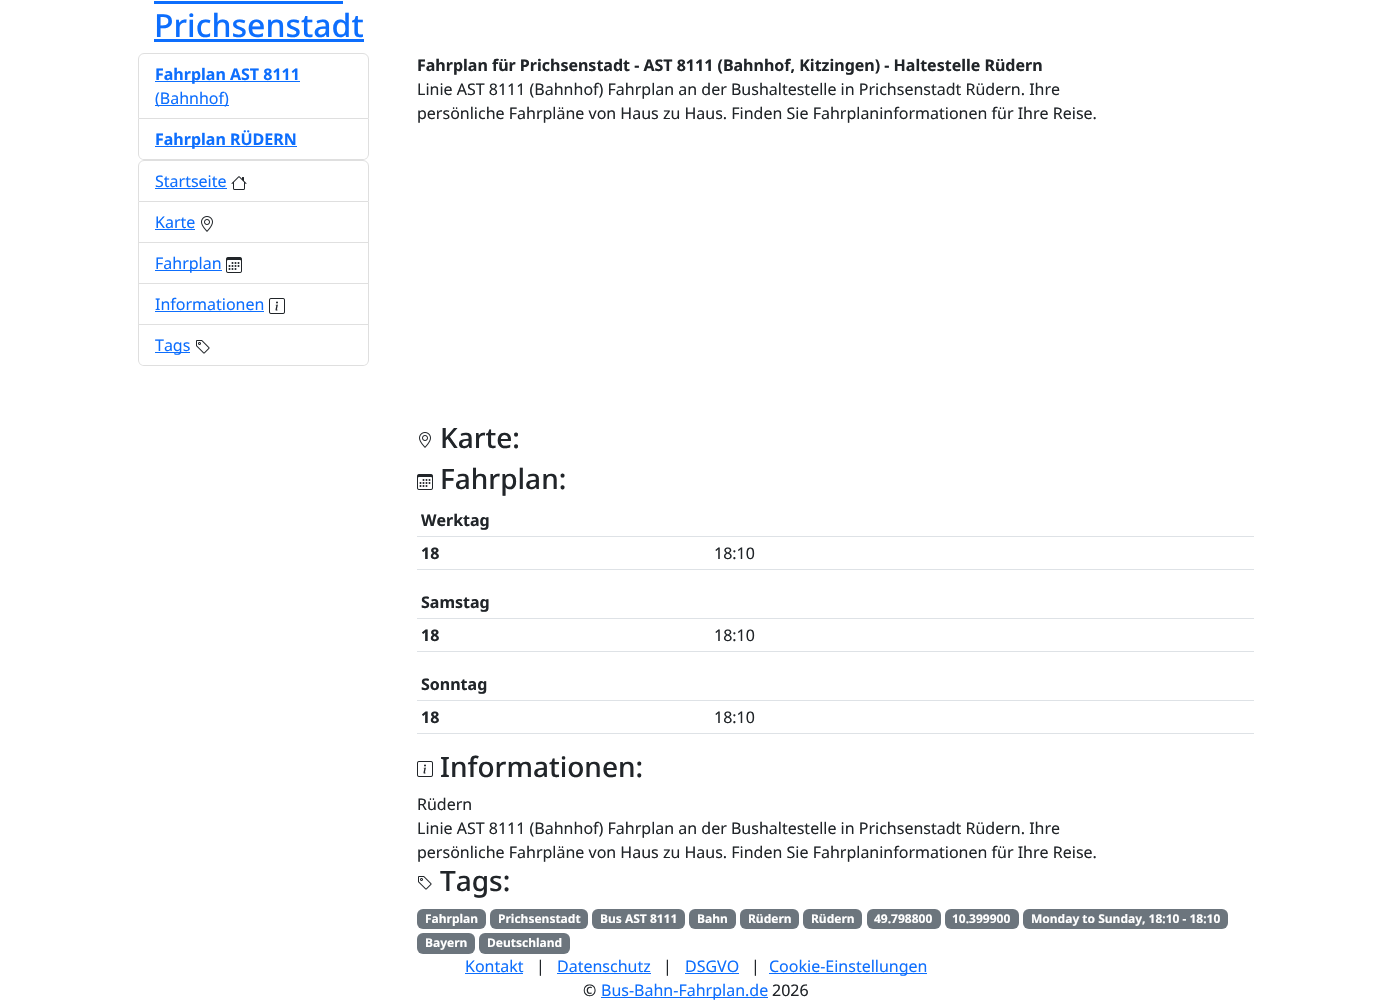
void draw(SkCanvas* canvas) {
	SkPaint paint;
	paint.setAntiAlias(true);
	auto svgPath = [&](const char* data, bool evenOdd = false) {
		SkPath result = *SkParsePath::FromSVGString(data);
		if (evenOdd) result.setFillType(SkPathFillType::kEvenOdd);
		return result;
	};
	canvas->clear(0xffffffff);
	SkFont f1(fontMgr->matchFamilyStyle("Noto Sans", SkFontStyle(500, SkFontStyle::kNormal_Width, SkFontStyle::kUpright_Slant)), 32);
	f1.setSubpixel(true);
	paint.setColor(0xff0d6efd);
	canvas->drawString("Prichsenstadt", 154, 37, f1, paint);
	canvas->drawRect(SkRect::MakeXYWH(154, 1, 189, 3), paint);
	canvas->drawRect(SkRect::MakeXYWH(154, 39, 210, 3), paint);
	paint.setStroke(true);
	paint.setStrokeWidth(1);
	paint.setColor(0xffdfdfdf);
	canvas->drawPath(svgPath("M144 53.5H363C366 53.5 368.5 56 368.5 59V118.5H138.5V59C138.5 56 141 53.5 144 53.5Z"), paint);
	paint.setStroke(false);
	paint.setColor(0xff0d6efd);
	canvas->drawRect(SkRect::MakeXYWH(155, 81, 145, 1), paint);
	SkFont f2(fontMgr->matchFamilyStyle("Noto Sans", SkFontStyle::Bold()), 16);
	f2.setSubpixel(true);
	canvas->drawString("Fahrplan AST 8111", 155, 80, f2, paint);
	canvas->drawRect(SkRect::MakeXYWH(155, 105, 74, 1), paint);
	SkFont f3(fontMgr->matchFamilyStyle("Noto Sans", SkFontStyle::Normal()), 16);
	f3.setSubpixel(true);
	canvas->drawString("(Bahnhof)", 155, 104, f3, paint);
	paint.setColor(0xffdfdfdf);
	canvas->drawPath(svgPath("M138 119H369V154C369 157 366 160 363 160H144C141 160 138 157 138 154ZM139 119H368V154C368 157 366 159 363 159H144C141 159 139 157 139 154Z", true), paint);
	paint.setColor(0xff0d6efd);
	canvas->drawRect(SkRect::MakeXYWH(155, 146, 142, 1), paint);
	canvas->drawString("Fahrplan RÜDERN", 155, 145, f2, paint);
	paint.setStroke(true);
	paint.setColor(0xffdfdfdf);
	canvas->drawPath(svgPath("M144 160.5H363C366 160.5 368.5 163 368.5 166V201.5H138.5V166C138.5 163 141 160.5 144 160.5Z"), paint);
	paint.setStroke(false);
	paint.setColor(0xff0d6efd);
	canvas->drawString("Startseite", 155, 187, f3, paint);
	canvas->drawRect(SkRect::MakeXYWH(155, 188, 72, 1), paint);
	canvas->drawImageRect(SkImages::DeferredFromEncodedData(SkData::MakeFromFileName("img1.png")), SkRect::MakeXYWH(231, 176, 16, 14), SkSamplingOptions());
	paint.setColor(0xffdfdfdf);
	canvas->drawPath(svgPath("M369 202V243L368 242V202Z"), paint);
	paint.setColor(0x1f000000);
	canvas->drawPath(svgPath("M369 243H138L139 242H368Z"), paint);
	canvas->drawPath(svgPath("M138 243V202H139V242Z"), paint);
	paint.setColor(0xff0d6efd);
	canvas->drawString("Karte", 155, 228, f3, paint);
	canvas->drawRect(SkRect::MakeXYWH(155, 229, 40, 1), paint);
	canvas->drawImageRect(SkImages::DeferredFromEncodedData(SkData::MakeFromFileName("img2.png")), SkRect::MakeXYWH(201, 216, 12, 16), SkSamplingOptions());
	paint.setColor(0xffdfdfdf);
	canvas->drawPath(svgPath("M369 243V284L368 283V243Z"), paint);
	paint.setColor(0x1f000000);
	canvas->drawPath(svgPath("M369 284H138L139 283H368Z"), paint);
	canvas->drawPath(svgPath("M138 284V243H139V283Z"), paint);
	paint.setColor(0xff0d6efd);
	canvas->drawRect(SkRect::MakeXYWH(155, 270, 67, 1), paint);
	canvas->drawString("Fahrplan", 155, 269, f3, paint);
	canvas->drawImageRect(SkImages::DeferredFromEncodedData(SkData::MakeFromFileName("img3.png")), SkRect::MakeXYWH(226, 257, 16, 16), SkSamplingOptions());
	paint.setColor(0xffdfdfdf);
	canvas->drawPath(svgPath("M369 284V325L368 324V284Z"), paint);
	paint.setColor(0x1f000000);
	canvas->drawPath(svgPath("M369 325H138L139 324H368Z"), paint);
	canvas->drawPath(svgPath("M138 325V284H139V324Z"), paint);
	paint.setColor(0xff0d6efd);
	canvas->drawString("Informationen", 155, 310, f3, paint);
	canvas->drawRect(SkRect::MakeXYWH(155, 311, 109, 1), paint);
	canvas->drawImageRect(SkImages::DeferredFromEncodedData(SkData::MakeFromFileName("img4.png")), SkRect::MakeXYWH(269, 298, 16, 16), SkSamplingOptions());
	paint.setColor(0xffdfdfdf);
	canvas->drawPath(svgPath("M138 325H369V360C369 363 366 366 363 366H144C141 366 138 363 138 360ZM139 325H368V360C368 363 366 365 363 365H144C141 365 139 363 139 360Z", true), paint);
	paint.setColor(0xff0d6efd);
	canvas->drawRect(SkRect::MakeXYWH(155, 352, 35, 1), paint);
	canvas->drawString("Tags", 155, 351, f3, paint);
	canvas->drawImageRect(SkImages::DeferredFromEncodedData(SkData::MakeFromFileName("img5.png")), SkRect::MakeXYWH(196, 340, 14, 14), SkSamplingOptions());
	paint.setColor(0xff212529);
	canvas->drawString("Fahrplan für Prichsenstadt - AST 8111 (Bahnhof, Kitzingen) - Haltestelle Rüdern", 417, 71, f2, paint);
	canvas->drawString("Linie AST 8111 (Bahnhof) Fahrplan an der Bushaltestelle in Prichsenstadt Rüdern. Ihre", 417, 95, f3, paint);
	canvas->drawString("persönliche Fahrpläne von Haus zu Haus. Finden Sie Fahrplaninformationen für Ihre Reise.", 417, 119, f3, paint);
	canvas->drawImageRect(SkImages::DeferredFromEncodedData(SkData::MakeFromFileName("img2.png")), SkRect::MakeXYWH(419, 432, 12, 16), SkSamplingOptions());
	SkFont f4(fontMgr->matchFamilyStyle("Noto Sans", SkFontStyle(500, SkFontStyle::kNormal_Width, SkFontStyle::kUpright_Slant)), 28);
	f4.setSubpixel(true);
	canvas->drawString("Karte:", 440, 448, f4, paint);
	canvas->drawImageRect(SkImages::DeferredFromEncodedData(SkData::MakeFromFileName("img3.png")), SkRect::MakeXYWH(417, 474, 16, 16), SkSamplingOptions());
	canvas->drawString("Fahrplan:", 440, 489, f4, paint);
	paint.setColor(0xffdee2e6);
	canvas->drawRect(SkRect::MakeXYWH(417, 536, 837, 1), paint);
	paint.setColor(0xff212529);
	canvas->drawString("Werktag", 421, 526, f2, paint);
	canvas->drawString("18", 421, 559, f2, paint);
	paint.setColor(0xffdee2e6);
	canvas->drawRect(SkRect::MakeXYWH(417, 569, 837, 1), paint);
	paint.setColor(0xff212529);
	canvas->drawString("18:10", 714, 559, f3, paint);
	paint.setColor(0xffdee2e6);
	canvas->drawRect(SkRect::MakeXYWH(417, 618, 837, 1), paint);
	paint.setColor(0xff212529);
	canvas->drawString("Samstag", 421, 608, f2, paint);
	canvas->drawString("18", 421, 641, f2, paint);
	paint.setColor(0xffdee2e6);
	canvas->drawRect(SkRect::MakeXYWH(417, 651, 837, 1), paint);
	paint.setColor(0xff212529);
	canvas->drawString("18:10", 714, 641, f3, paint);
	paint.setColor(0xffdee2e6);
	canvas->drawRect(SkRect::MakeXYWH(417, 700, 837, 1), paint);
	paint.setColor(0xff212529);
	canvas->drawString("Sonntag", 421, 690, f2, paint);
	canvas->drawString("18", 421, 723, f2, paint);
	paint.setColor(0xffdee2e6);
	canvas->drawRect(SkRect::MakeXYWH(417, 733, 837, 1), paint);
	paint.setColor(0xff212529);
	canvas->drawString("18:10", 714, 723, f3, paint);
	canvas->drawImageRect(SkImages::DeferredFromEncodedData(SkData::MakeFromFileName("img4.png")), SkRect::MakeXYWH(417, 761, 16, 16), SkSamplingOptions());
	canvas->drawString("Informationen:", 440, 777, f4, paint);
	canvas->drawString("Rüdern", 417, 810, f3, paint);
	canvas->drawString("Linie AST 8111 (Bahnhof) Fahrplan an der Bushaltestelle in Prichsenstadt Rüdern. Ihre", 417, 834, f3, paint);
	canvas->drawString("persönliche Fahrpläne von Haus zu Haus. Finden Sie Fahrplaninformationen für Ihre Reise.", 417, 858, f3, paint);
	canvas->drawImageRect(SkImages::DeferredFromEncodedData(SkData::MakeFromFileName("img5.png")), SkRect::MakeXYWH(418, 876, 14, 14), SkSamplingOptions());
	canvas->drawString("Tags:", 440, 891, f4, paint);
	paint.setColor(0xff6c757d);
	canvas->drawRoundRect(SkRect::MakeXYWH(417, 909, 69, 20), 6, 6, paint);
	SkFont f5(fontMgr->matchFamilyStyle("Noto Sans", SkFontStyle::Bold()), 12);
	f5.setSubpixel(true);
	paint.setColor(0xffffffff);
	canvas->drawString("Fahrplan", 425, 923, f5, paint);
	paint.setColor(0xff6c757d);
	canvas->drawRoundRect(SkRect::MakeXYWH(490, 909, 98, 20), 6, 6, paint);
	paint.setColor(0xffffffff);
	canvas->drawString("Prichsenstadt", 498, 923, f5, paint);
	paint.setColor(0xff6c757d);
	canvas->drawRoundRect(SkRect::MakeXYWH(592, 909, 93, 20), 6, 6, paint);
	paint.setColor(0xffffffff);
	canvas->drawString("Bus AST 8111", 600, 923, f5, paint);
	paint.setColor(0xff6c757d);
	canvas->drawRoundRect(SkRect::MakeXYWH(689, 909, 47, 20), 6, 6, paint);
	paint.setColor(0xffffffff);
	canvas->drawString("Bahn", 697, 923, f5, paint);
	paint.setColor(0xff6c757d);
	canvas->drawRoundRect(SkRect::MakeXYWH(740, 909, 59, 20), 6, 6, paint);
	paint.setColor(0xffffffff);
	canvas->drawString("Rüdern", 748, 923, f5, paint);
	paint.setColor(0xff6c757d);
	canvas->drawRoundRect(SkRect::MakeXYWH(803, 909, 59, 20), 6, 6, paint);
	paint.setColor(0xffffffff);
	canvas->drawString("Rüdern", 811, 923, f5, paint);
	paint.setColor(0xff6c757d);
	canvas->drawRoundRect(SkRect::MakeXYWH(867, 909, 74, 20), 6, 6, paint);
	paint.setColor(0xffffffff);
	canvas->drawString("49.798800", 874, 923, f5, paint);
	paint.setColor(0xff6c757d);
	canvas->drawRoundRect(SkRect::MakeXYWH(945, 909, 74, 20), 6, 6, paint);
	paint.setColor(0xffffffff);
	canvas->drawString("10.399900", 952, 923, f5, paint);
	paint.setColor(0xff6c757d);
	canvas->drawRoundRect(SkRect::MakeXYWH(1023, 909, 205, 20), 6, 6, paint);
	paint.setColor(0xffffffff);
	canvas->drawString("Monday to Sunday, 18:10 - 18:10", 1031, 923, f5, paint);
	paint.setColor(0xff6c757d);
	canvas->drawRoundRect(SkRect::MakeXYWH(417, 933, 58, 21), 6, 6, paint);
	paint.setColor(0xffffffff);
	canvas->drawString("Bayern", 425, 947, f5, paint);
	paint.setColor(0xff6c757d);
	canvas->drawRoundRect(SkRect::MakeXYWH(479, 933, 91, 21), 6, 6, paint);
	paint.setColor(0xffffffff);
	canvas->drawString("Deutschland", 487, 947, f5, paint);
	paint.setColor(0xff0d6efd);
	canvas->drawString("Kontakt", 465, 972, f3, paint);
	canvas->drawRect(SkRect::MakeXYWH(465, 973, 58, 1), paint);
	paint.setColor(0xff212529);
	canvas->drawString("|", 536, 972, f3, paint);
	paint.setColor(0xff0d6efd);
	canvas->drawString("Datenschutz", 557, 972, f3, paint);
	canvas->drawRect(SkRect::MakeXYWH(557, 973, 94, 1), paint);
	paint.setColor(0xff212529);
	canvas->drawString("|", 663, 972, f3, paint);
	paint.setColor(0xff0d6efd);
	canvas->drawString("DSGVO", 685, 972, f3, paint);
	canvas->drawRect(SkRect::MakeXYWH(685, 973, 54, 1), paint);
	paint.setColor(0xff212529);
	canvas->drawString("|", 751, 972, f3, paint);
	paint.setColor(0xff0d6efd);
	canvas->drawRect(SkRect::MakeXYWH(769, 973, 158, 1), paint);
	canvas->drawString("Cookie-Einstellungen", 769, 972, f3, paint);
	paint.setColor(0xff212529);
	canvas->drawString("©", 583, 996, f3, paint);
	paint.setColor(0xff0d6efd);
	canvas->drawRect(SkRect::MakeXYWH(601, 997, 167, 1), paint);
	canvas->drawString("Bus-Bahn-Fahrplan.de", 601, 996, f3, paint);
	paint.setColor(0xff212529);
	canvas->drawString("2026", 772, 996, f3, paint);
}
